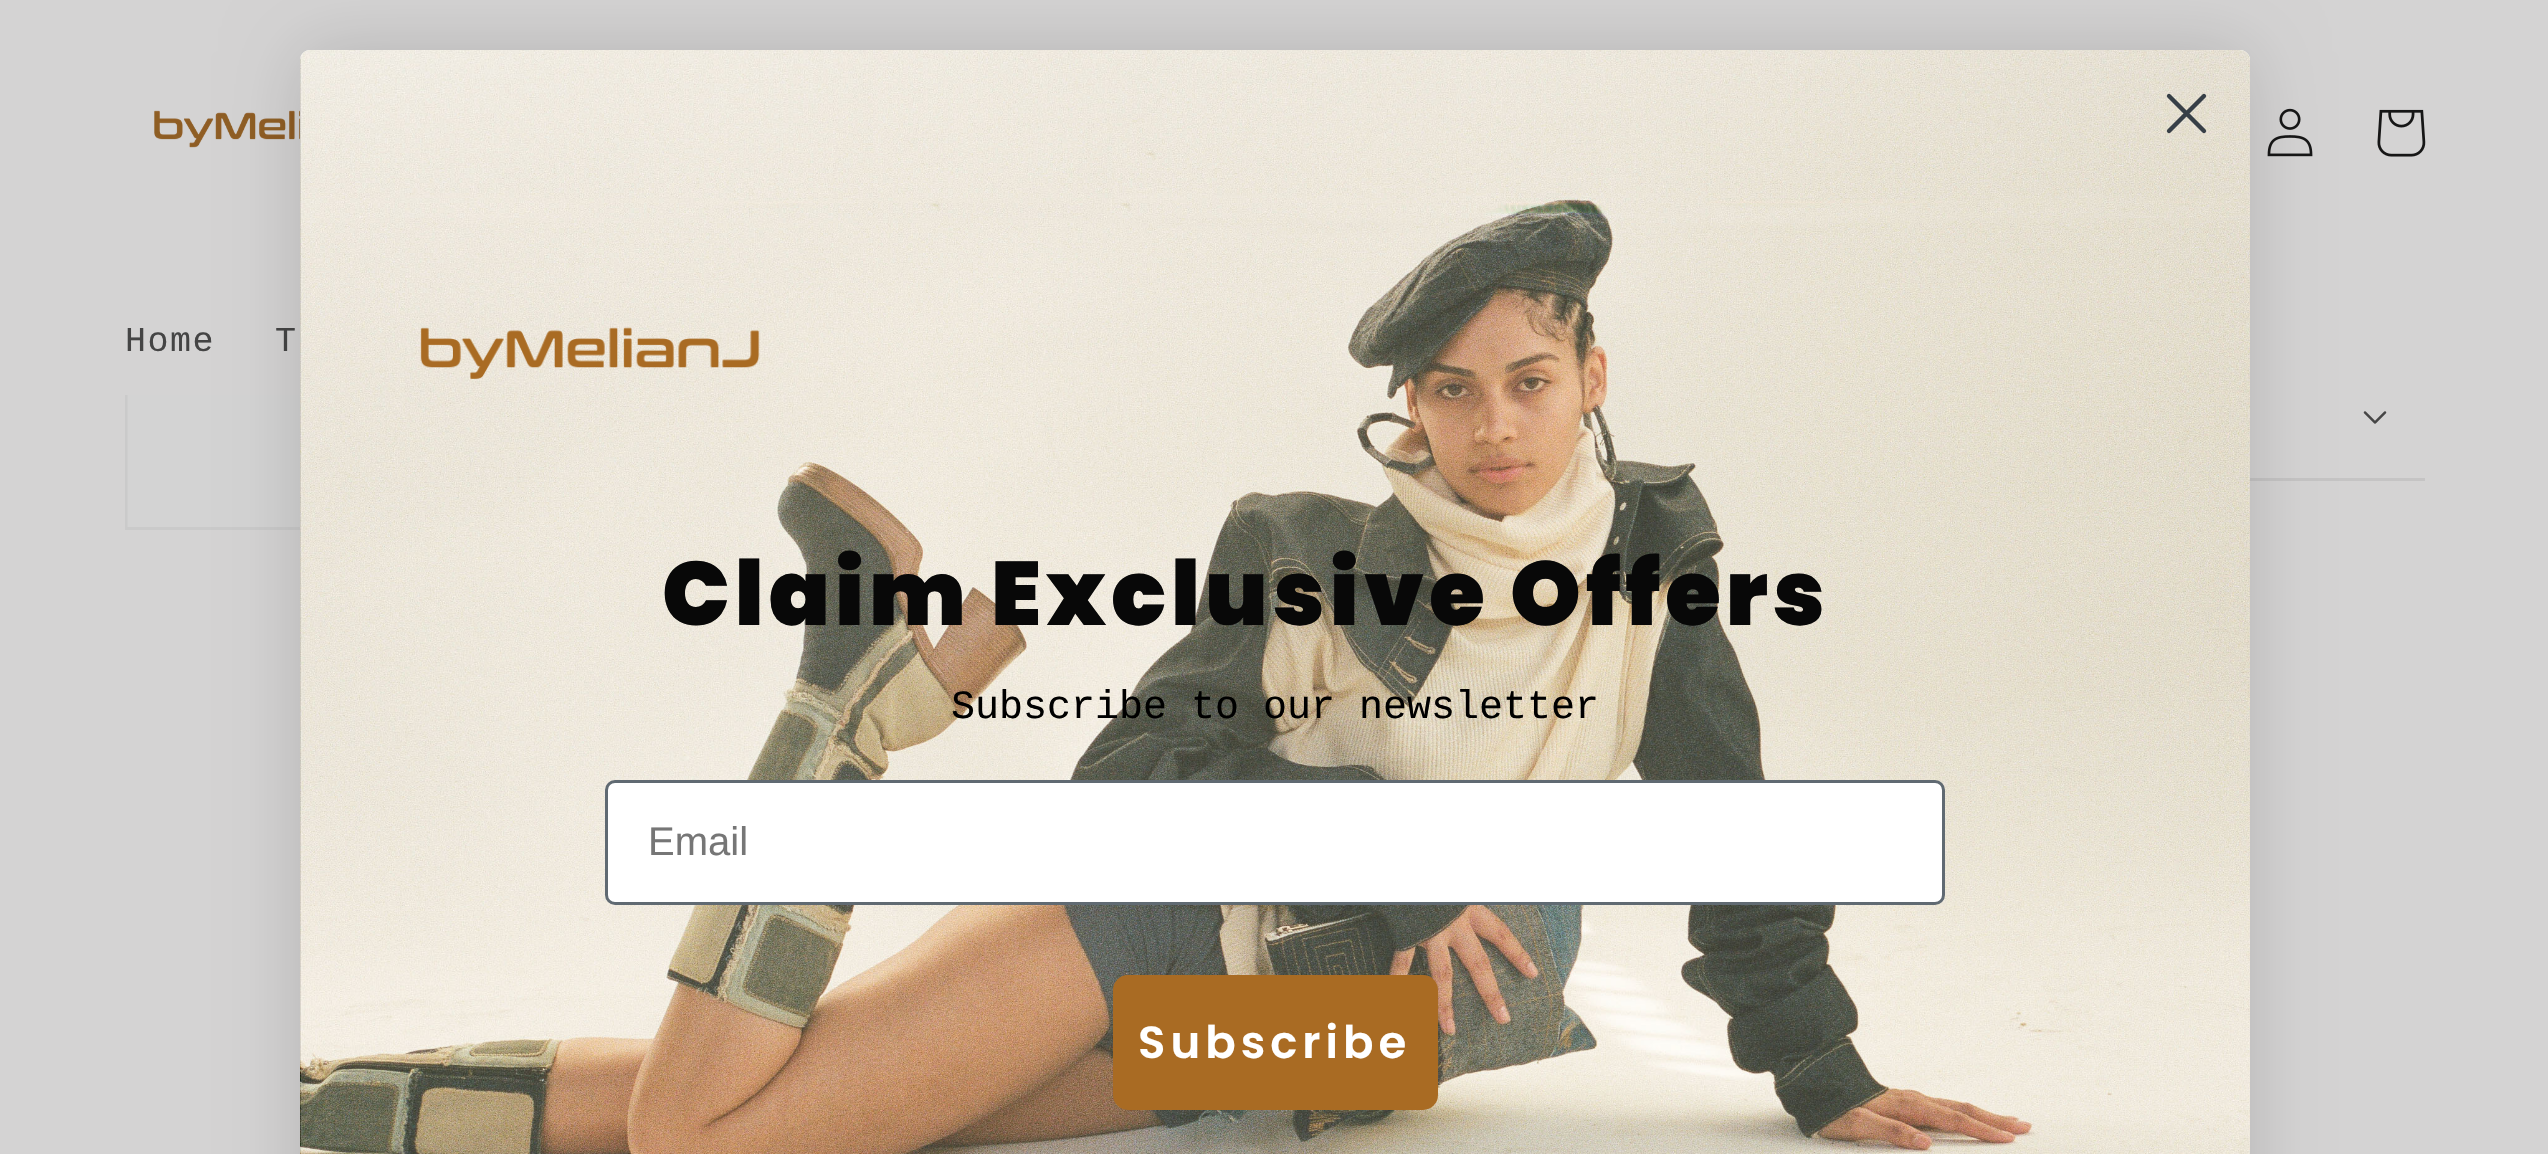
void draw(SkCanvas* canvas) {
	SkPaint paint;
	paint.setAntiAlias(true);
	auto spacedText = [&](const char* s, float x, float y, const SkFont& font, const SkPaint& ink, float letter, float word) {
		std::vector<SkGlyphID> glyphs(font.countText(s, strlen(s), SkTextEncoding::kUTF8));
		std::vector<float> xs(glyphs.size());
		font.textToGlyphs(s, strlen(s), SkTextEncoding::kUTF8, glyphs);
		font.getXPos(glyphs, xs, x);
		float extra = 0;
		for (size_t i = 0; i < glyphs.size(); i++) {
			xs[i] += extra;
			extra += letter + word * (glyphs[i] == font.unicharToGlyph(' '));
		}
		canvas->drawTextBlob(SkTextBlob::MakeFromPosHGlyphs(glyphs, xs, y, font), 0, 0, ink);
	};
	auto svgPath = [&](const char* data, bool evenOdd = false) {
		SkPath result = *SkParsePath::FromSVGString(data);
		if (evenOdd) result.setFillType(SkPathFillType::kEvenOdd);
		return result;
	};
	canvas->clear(0xffd4d3d3);
	paint.setStroke(true);
	paint.setStrokeWidth(3);
	paint.setColor(0xffcacaca);
	canvas->drawRect(SkRect::MakeXYWH(126.5, -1.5, 735, 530), paint);
	canvas->drawImageRect(SkImages::DeferredFromEncodedData(SkData::MakeFromFileName("img1.png")), SkRect::MakeXYWH(127, 395, 173, 132), SkSamplingOptions());
	paint.setStroke(false);
	paint.setColor(0xffc5c4c4);
	canvas->drawRect(SkRect::MakeXYWH(2250, 478, 175, 3), paint);
	canvas->drawImageRect(SkImages::DeferredFromEncodedData(SkData::MakeFromFileName("img2.png")), SkRect::MakeXYWH(2363, 411, 24, 13), SkSamplingOptions());
	paint.setColor(0xffd4d3d3);
	canvas->drawRect(SkRect::MakeXYWH(125, 0, 738, 395), paint);
	canvas->drawImageRect(SkImages::DeferredFromEncodedData(SkData::MakeFromFileName("img3.png")), SkRect::MakeXYWH(154, 110, 146, 38), SkSamplingOptions());
	canvas->drawImageRect(SkImages::DeferredFromEncodedData(SkData::MakeFromFileName("img4.png")), SkRect::MakeXYWH(2267, 108, 46, 49), SkSamplingOptions());
	canvas->drawImageRect(SkImages::DeferredFromEncodedData(SkData::MakeFromFileName("img5.png")), SkRect::MakeXYWH(2377, 109, 49, 48), SkSamplingOptions());
	SkFont f1(fontMgr->matchFamilyStyle("Liberation Mono", SkFontStyle::Normal()), 35);
	f1.setSubpixel(true);
	paint.setColor(0xff454545);
	spacedText("Home", 125, 351, f1, paint, 1.5, 0);
	spacedText("T", 275, 351, f1, paint, 1.5, 0);
	paint.setColor(0x26000000);
	paint.setMaskFilter(SkMaskFilter::MakeBlur(kNormal_SkBlurStyle, 37.5));
	canvas->drawRoundRect(SkRect::MakeXYWH(300, 50, 1950, 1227), 10, 10, paint);
	paint.setMaskFilter(nullptr);
	paint.setColor(0xffffffff);
	canvas->drawPath(svgPath("M310 50H2240C2245.5 50 2250 54.5 2250 60V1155H300V60C300 54.5 304.5 50 310 50Z"), paint);
	canvas->drawImageRect(SkImages::DeferredFromEncodedData(SkData::MakeFromFileName("img6.png")), SkRect::MakeXYWH(300, 50, 1950, 1104), SkSamplingOptions());
	paint.setStroke(true);
	paint.setStrokeWidth(4.4);
	paint.setStrokeCap(SkPaint::kRound_Cap);
	paint.setStrokeJoin(SkPaint::kRound_Join);
	paint.setColor(0xff373f47);
	canvas->drawPath(svgPath("M2169 96L2204 131M2169 131L2204 96Z"), paint);
	canvas->drawImageRect(SkImages::DeferredFromEncodedData(SkData::MakeFromFileName("img7.png")), SkRect::MakeXYWH(420, 327, 340, 52), SkSamplingOptions());
	SkFont f2(fontMgr->matchFamilyStyle("Poppins", SkFontStyle(900, SkFontStyle::kNormal_Width, SkFontStyle::kUpright_Slant)), 90);
	f2.setSubpixel(true);
	paint.setStroke(false);
	paint.setColor(0xff080808);
	spacedText("Claim Exclusive Offers", 662, 625, f2, paint, 5, 0);
	SkFont f3(fontMgr->matchFamilyStyle("Liberation Mono", SkFontStyle::Normal()), 40);
	f3.setSubpixel(true);
	paint.setColor(0xff000000);
	canvas->drawString("Subscribe to our newsletter", 951, 718, f3, paint);
	paint.setColor(0xffffffff);
	canvas->drawRoundRect(SkRect::MakeXYWH(606.5, 781.5, 1337, 122), 8.5, 8.5, paint);
	paint.setStroke(true);
	paint.setStrokeWidth(3);
	paint.setStrokeCap(SkPaint::kButt_Cap);
	paint.setStrokeJoin(SkPaint::kMiter_Join);
	paint.setColor(0xff606a72);
	canvas->drawRoundRect(SkRect::MakeXYWH(606.5, 781.5, 1337, 122), 8.5, 8.5, paint);
	SkFont f4(fontMgr->matchFamilyStyle("Liberation Sans", SkFontStyle::Normal()), 40);
	f4.setSubpixel(true);
	paint.setStroke(false);
	paint.setColor(0xff767676);
	canvas->drawString("Email", 648, 855, f4, paint);
	paint.setColor(0xffa96b23);
	canvas->drawRoundRect(SkRect::MakeXYWH(1113, 975, 325, 135), 15, 15, paint);
	SkFont f5(fontMgr->matchFamilyStyle("Poppins", SkFontStyle(600, SkFontStyle::kNormal_Width, SkFontStyle::kUpright_Slant)), 45);
	f5.setSubpixel(true);
	paint.setColor(0xffffffff);
	spacedText("Subscribe", 1138, 1058, f5, paint, 5, 0);
}
